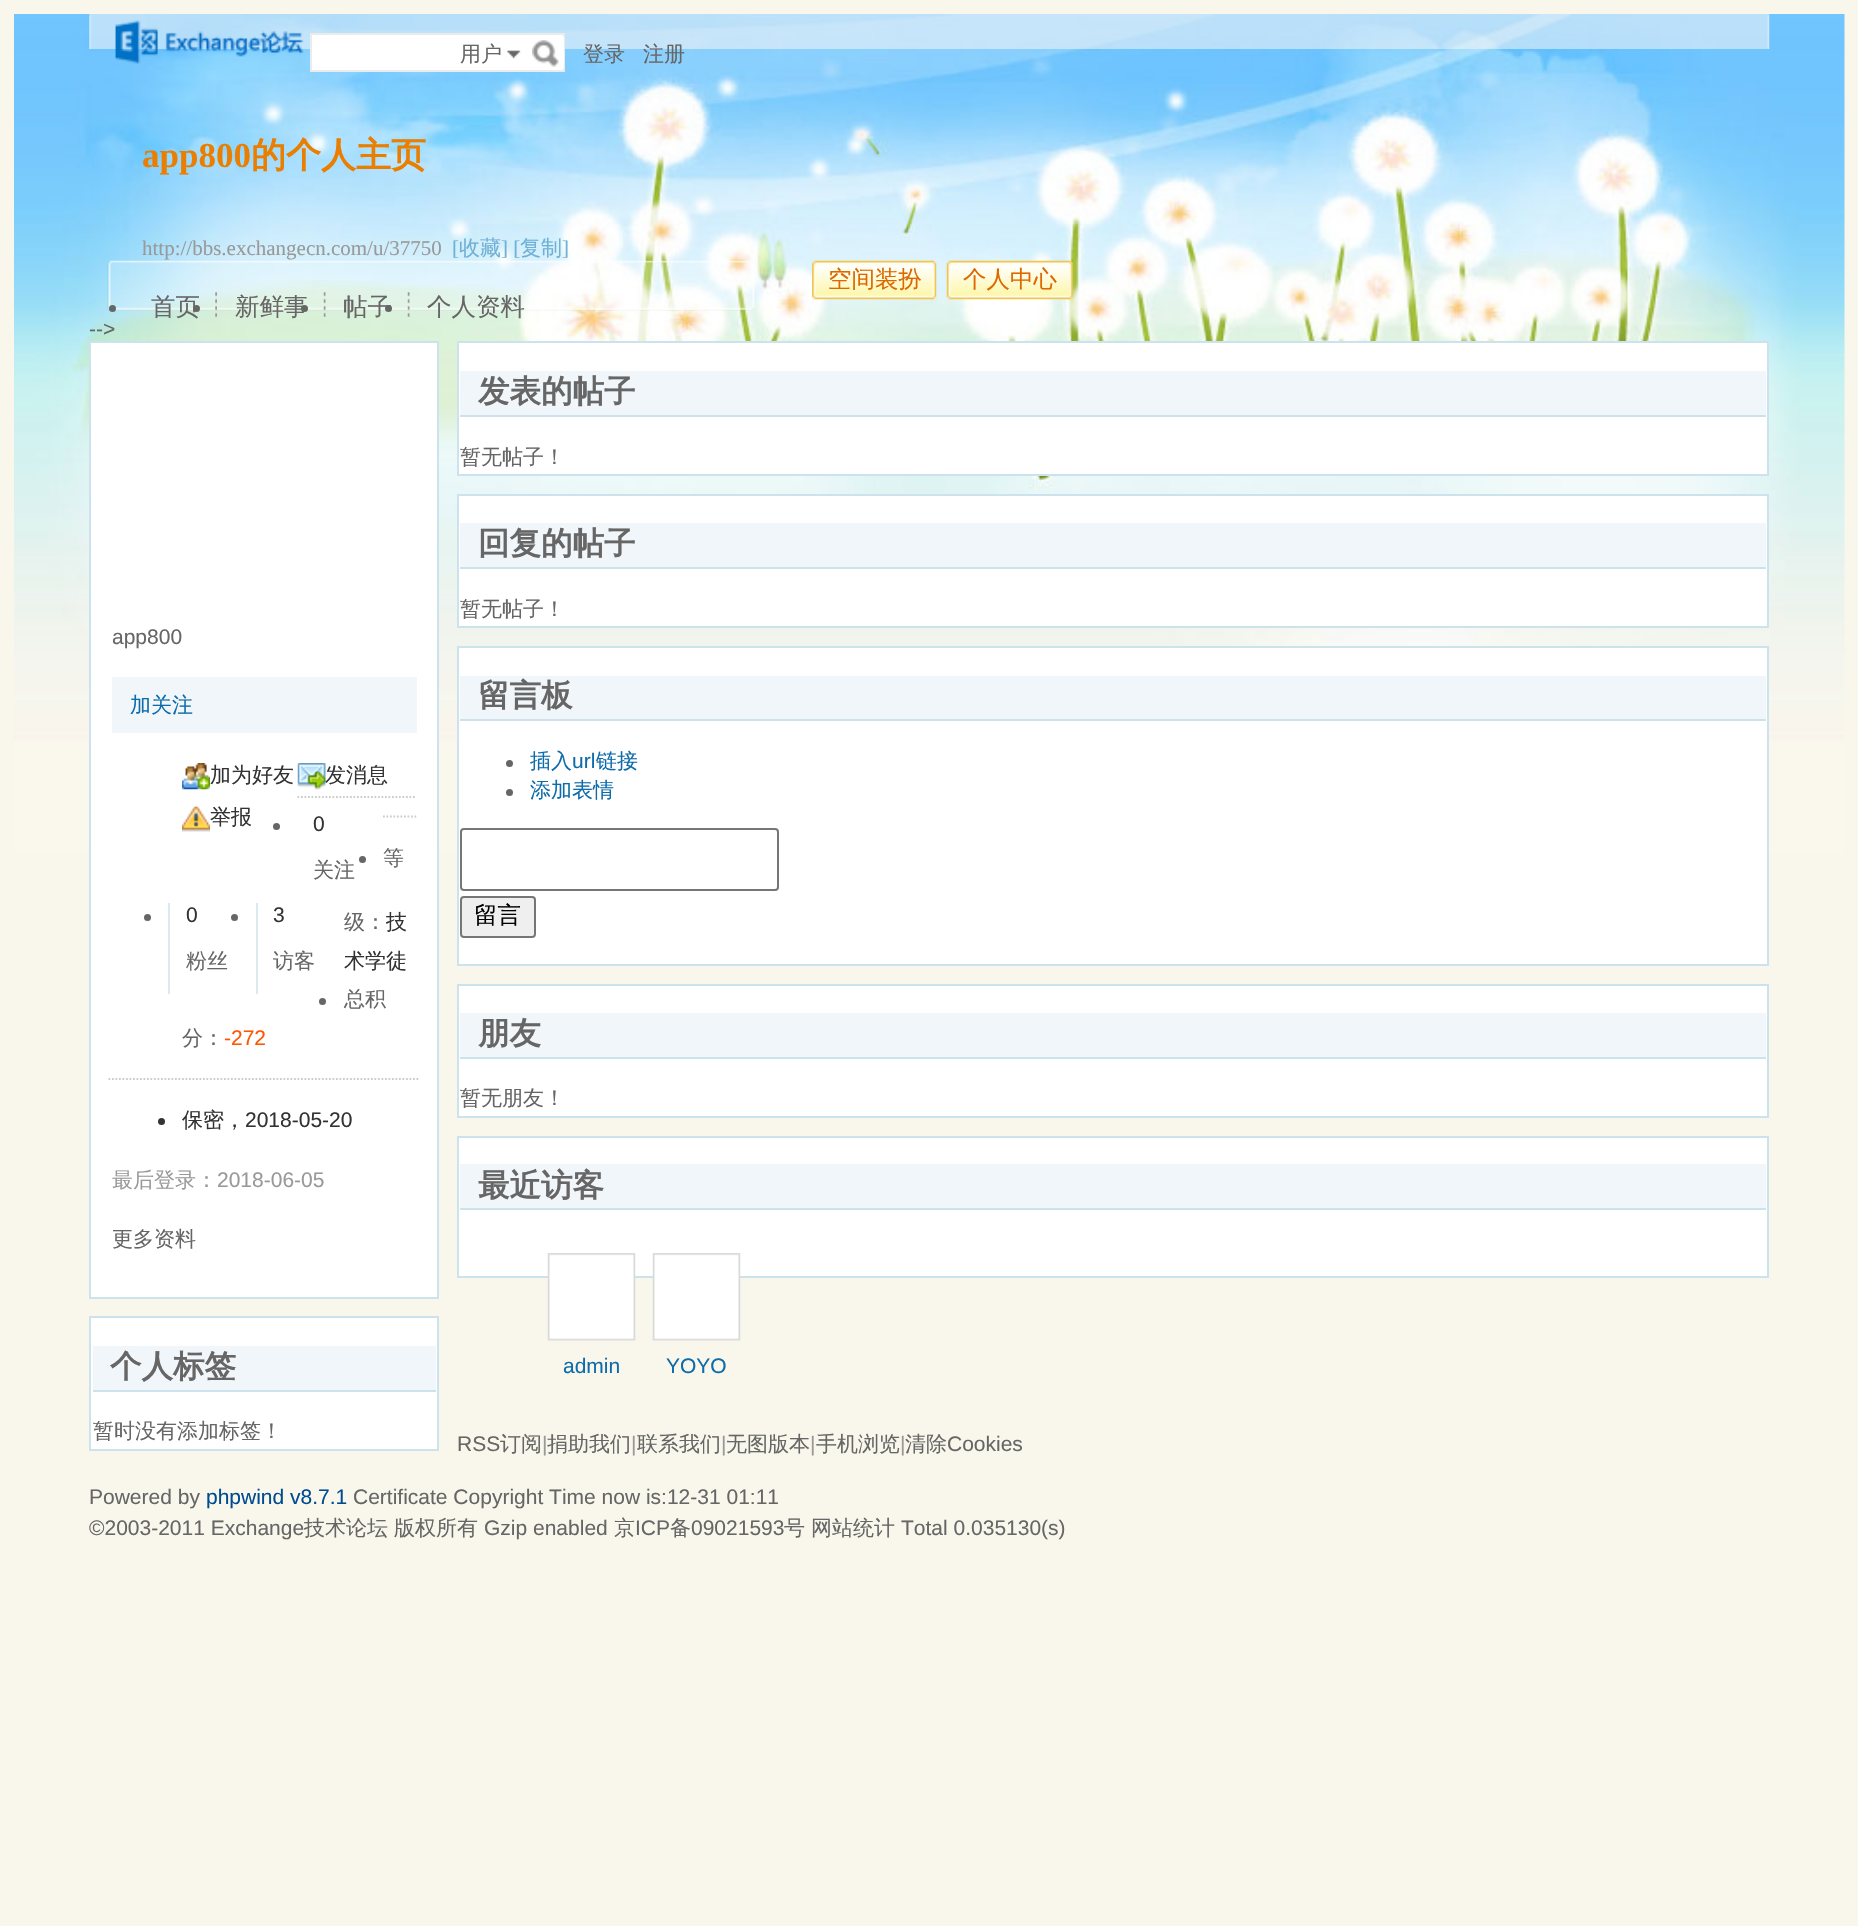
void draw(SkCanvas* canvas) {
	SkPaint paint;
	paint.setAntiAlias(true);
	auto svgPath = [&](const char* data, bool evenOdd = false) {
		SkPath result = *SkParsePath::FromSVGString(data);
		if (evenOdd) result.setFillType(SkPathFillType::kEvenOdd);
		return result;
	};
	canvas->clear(0xfff9f7eb);
	canvas->drawImageRect(SkImages::DeferredFromEncodedData(SkData::MakeFromFileName("img1.png")), SkRect::MakeXYWH(14, 14, 1831, 840), SkSamplingOptions());
	canvas->drawImageRect(SkImages::DeferredFromEncodedData(SkData::MakeFromFileName("img2.png")), SkRect::MakeXYWH(89, 14, 1681, 35), SkSamplingOptions());
	canvas->drawImageRect(SkImages::DeferredFromEncodedData(SkData::MakeFromFileName("img3.png")), SkRect::MakeXYWH(115, 20, 189, 44), SkSamplingOptions());
	paint.setColor(0xffffffff);
	canvas->drawRect(SkRect::MakeXYWH(311, 34, 253, 37), paint);
	paint.setStroke(true);
	paint.setStrokeWidth(2);
	paint.setColor(0xffeaeceb);
	canvas->drawRect(SkRect::MakeXYWH(311, 34, 253, 37), paint);
	SkFont f1(fontMgr->matchFamilyStyle("WenQuanYi Zen Hei", SkFontStyle(500, SkFontStyle::kNormal_Width, SkFontStyle::kUpright_Slant)), 21);
	f1.setSubpixel(true);
	paint.setStroke(false);
	paint.setColor(0xff666666);
	canvas->drawString("用户", 460, 61, f1, paint);
	canvas->drawImageRect(SkImages::DeferredFromEncodedData(SkData::MakeFromFileName("img4.png")), SkRect::MakeXYWH(507, 50, 14, 9), SkSamplingOptions());
	paint.setColor(0xffffffff);
	canvas->drawRect(SkRect::MakeXYWH(563, 37, 1, 31), paint);
	canvas->drawImageRect(SkImages::DeferredFromEncodedData(SkData::MakeFromFileName("img5.png")), SkRect::MakeXYWH(532, 40, 27, 27), SkSamplingOptions());
	paint.setColor(0xff666666);
	canvas->drawString("登录", 583, 61, f1, paint);
	canvas->drawString("注册", 643, 61, f1, paint);
	SkFont f2(fontMgr->matchFamilyStyle("Liberation Serif", SkFontStyle::Bold()), 35);
	f2.setSubpixel(true);
	paint.setColor(0xffea7e00);
	canvas->drawString("app800", 142, 167, f2, paint);
	SkFont f3(fontMgr->matchFamilyStyle("WenQuanYi Zen Hei", SkFontStyle::Bold()), 35);
	f3.setSubpixel(true);
	canvas->drawString("的个人主页", 251, 167, f3, paint);
	SkFont f4(fontMgr->matchFamilyStyle("Liberation Serif", SkFontStyle::Normal()), 21);
	f4.setSubpixel(true);
	paint.setColor(0xff999999);
	canvas->drawString("http://bbs.exchangecn.com/u/37750", 142, 255, f4, paint);
	paint.setColor(0xff6fb0d6);
	canvas->drawString("[", 452, 255, f4, paint);
	canvas->drawString("收藏", 459, 255, f1, paint);
	canvas->drawString("] [", 501, 255, f4, paint);
	canvas->drawString("复制", 520, 255, f1, paint);
	canvas->drawString("]", 562, 255, f4, paint);
	canvas->drawImageRect(SkImages::DeferredFromEncodedData(SkData::MakeFromFileName("img6.png")), SkRect::MakeXYWH(930, 260, 7, 40), SkSamplingOptions());
	canvas->drawImageRect(SkImages::DeferredFromEncodedData(SkData::MakeFromFileName("img7.png")), SkRect::MakeXYWH(812, 260, 121, 40), SkSamplingOptions());
	SkFont f5(fontMgr->matchFamilyStyle("WenQuanYi Zen Hei", SkFontStyle(500, SkFontStyle::kNormal_Width, SkFontStyle::kUpright_Slant)), 23.5);
	f5.setSubpixel(true);
	paint.setColor(0xffdd6800);
	canvas->drawString("空间装扮", 828, 287, f5, paint);
	canvas->drawImageRect(SkImages::DeferredFromEncodedData(SkData::MakeFromFileName("img8.png")), SkRect::MakeXYWH(1067, 260, 6, 40), SkSamplingOptions());
	canvas->drawImageRect(SkImages::DeferredFromEncodedData(SkData::MakeFromFileName("img9.png")), SkRect::MakeXYWH(946, 260, 124, 40), SkSamplingOptions());
	canvas->drawString("个人中心", 963, 287, f5, paint);
	canvas->drawImageRect(SkImages::DeferredFromEncodedData(SkData::MakeFromFileName("img10.png")), SkRect::MakeXYWH(107, 260, 648, 51), SkSamplingOptions());
	paint.setColor(0xff666666);
	canvas->drawCircle(112.5, 308.5, 3.5, paint);
	canvas->drawImageRect(SkImages::DeferredFromEncodedData(SkData::MakeFromFileName("img11.png")), SkRect::MakeXYWH(215, 292, 2, 25), SkSamplingOptions());
	canvas->drawCircle(196.5, 308.5, 3.5, paint);
	SkFont f6(fontMgr->matchFamilyStyle("WenQuanYi Zen Hei", SkFontStyle(500, SkFontStyle::kNormal_Width, SkFontStyle::kUpright_Slant)), 24.5);
	f6.setSubpixel(true);
	canvas->drawString("首页", 151, 315, f6, paint);
	canvas->drawImageRect(SkImages::DeferredFromEncodedData(SkData::MakeFromFileName("img12.png")), SkRect::MakeXYWH(323, 292, 3, 25), SkSamplingOptions());
	canvas->drawCircle(304.5, 308.5, 3.5, paint);
	canvas->drawString("新鲜事", 235, 315, f6, paint);
	canvas->drawImageRect(SkImages::DeferredFromEncodedData(SkData::MakeFromFileName("img13.png")), SkRect::MakeXYWH(407, 292, 3, 25), SkSamplingOptions());
	canvas->drawCircle(388.5, 308.5, 3.5, paint);
	canvas->drawString("帖子", 343, 315, f6, paint);
	canvas->drawString("个人资料", 427, 315, f6, paint);
	SkFont f7(fontMgr->matchFamilyStyle("Liberation Sans", SkFontStyle::Normal()), 21);
	f7.setSubpixel(true);
	canvas->drawString("-->", 89, 336, f7, paint);
	paint.setColor(0xffffffff);
	canvas->drawRect(SkRect::MakeXYWH(90, 342, 348, 956), paint);
	paint.setStroke(true);
	paint.setColor(0xffcce2ed);
	canvas->drawRect(SkRect::MakeXYWH(90, 342, 348, 956), paint);
	paint.setStroke(false);
	paint.setColor(0xff666666);
	canvas->drawString("app800", 112, 644, f7, paint);
	paint.setColor(0xfff1f6fa);
	canvas->drawRect(SkRect::MakeXYWH(112, 677, 305, 56), paint);
	paint.setColor(0xff0e6caa);
	canvas->drawString("加关注", 130, 712, f1, paint);
	canvas->drawImageRect(SkImages::DeferredFromEncodedData(SkData::MakeFromFileName("img14.png")), SkRect::MakeXYWH(182, 763, 28, 27), SkSamplingOptions());
	paint.setColor(0xff333333);
	canvas->drawString("加为好友", 210, 782, f1, paint);
	canvas->drawImageRect(SkImages::DeferredFromEncodedData(SkData::MakeFromFileName("img15.png")), SkRect::MakeXYWH(297, 763, 29, 27), SkSamplingOptions());
	canvas->drawString("发消息", 325, 782, f1, paint);
	canvas->drawImageRect(SkImages::DeferredFromEncodedData(SkData::MakeFromFileName("img16.png")), SkRect::MakeXYWH(182, 806, 28, 26), SkSamplingOptions());
	canvas->drawString("举报", 210, 824, f1, paint);
	paint.setStroke(true);
	paint.setStrokeWidth(1.8);
	paint.setColor(0xffcccccc);
	paint.setPathEffect(SkDashPathEffect::Make({{1.75f, 1.75f}}, 0));
	canvas->drawPath(svgPath("M297.5 797H416.5"), paint);
	paint.setPathEffect(nullptr);
	paint.setStroke(false);
	paint.setColor(0xff666666);
	canvas->drawCircle(276.5, 826.5, 3.5, paint);
	paint.setColor(0xff333333);
	canvas->drawString("0", 313, 831, f7, paint);
	paint.setColor(0xff666666);
	canvas->drawString("关注", 313, 877, f1, paint);
	paint.setColor(0xffdce9f1);
	canvas->drawRect(SkRect::MakeXYWH(168, 903, 2, 91), paint);
	paint.setColor(0xff666666);
	canvas->drawCircle(147.5, 917.5, 3.5, paint);
	paint.setColor(0xff333333);
	canvas->drawString("0", 186, 922, f7, paint);
	paint.setColor(0xff666666);
	canvas->drawString("粉丝", 186, 968, f1, paint);
	paint.setColor(0xffdce9f1);
	canvas->drawRect(SkRect::MakeXYWH(256, 903, 2, 91), paint);
	paint.setColor(0xff666666);
	canvas->drawCircle(234.5, 917.5, 3.5, paint);
	paint.setColor(0xff333333);
	canvas->drawString("3", 273, 922, f7, paint);
	paint.setColor(0xff666666);
	canvas->drawString("访客", 273, 968, f1, paint);
	paint.setStroke(true);
	paint.setColor(0xffcccccc);
	paint.setPathEffect(SkDashPathEffect::Make({{1.75f, 1.75f}}, 0));
	canvas->drawPath(svgPath("M383 816.5H416.5"), paint);
	paint.setPathEffect(nullptr);
	paint.setStroke(false);
	paint.setColor(0xff666666);
	canvas->drawCircle(362.5, 859.5, 3.5, paint);
	canvas->drawString("等", 383, 865, f1, paint);
	canvas->drawString("级：", 344, 929, f1, paint);
	paint.setColor(0xff333333);
	canvas->drawString("技", 386, 929, f1, paint);
	canvas->drawString("术学徒", 344, 968, f1, paint);
	paint.setColor(0xff666666);
	canvas->drawCircle(322.5, 1001.5, 3.5, paint);
	canvas->drawString("总积", 344, 1006, f1, paint);
	canvas->drawString("分：", 182, 1045, f1, paint);
	paint.setColor(0xffff5500);
	canvas->drawString("-272", 224, 1045, f7, paint);
	paint.setStroke(true);
	paint.setColor(0xffcccccc);
	paint.setPathEffect(SkDashPathEffect::Make({{1.75f, 1.75f}}, 0));
	canvas->drawPath(svgPath("M108.5 1079H420"), paint);
	paint.setPathEffect(nullptr);
	paint.setStroke(false);
	paint.setColor(0xff333333);
	canvas->drawCircle(161.5, 1121.5, 3.5, paint);
	canvas->drawString("保密，", 182, 1127, f1, paint);
	canvas->drawString("2018-05-20", 245, 1127, f7, paint);
	paint.setColor(0xff999999);
	canvas->drawString("最后登录：", 112, 1187, f1, paint);
	canvas->drawString("2018-06-05", 217, 1187, f7, paint);
	paint.setColor(0xff666666);
	canvas->drawString("更多资料", 112, 1246, f1, paint);
	paint.setColor(0xffffffff);
	canvas->drawRect(SkRect::MakeXYWH(90, 1317, 348, 133), paint);
	paint.setStroke(true);
	paint.setStrokeWidth(2);
	paint.setColor(0xffcce2ed);
	canvas->drawRect(SkRect::MakeXYWH(90, 1317, 348, 133), paint);
	paint.setStroke(false);
	paint.setColor(0xfff1f6fa);
	canvas->drawRect(SkRect::MakeXYWH(93, 1346, 343, 44), paint);
	paint.setColor(0xffcce2ed);
	canvas->drawRect(SkRect::MakeXYWH(93, 1390, 343, 2), paint);
	SkFont f8(fontMgr->matchFamilyStyle("WenQuanYi Zen Hei", SkFontStyle::Bold()), 31.5);
	f8.setSubpixel(true);
	paint.setColor(0xff666666);
	canvas->drawString("个人标签", 110, 1377, f8, paint);
	canvas->drawString("暂时没有添加标签！", 93, 1438, f1, paint);
	paint.setColor(0xffffffff);
	canvas->drawRect(SkRect::MakeXYWH(458, 342, 1310, 133), paint);
	paint.setStroke(true);
	paint.setColor(0xffcce2ed);
	canvas->drawRect(SkRect::MakeXYWH(458, 342, 1310, 133), paint);
	paint.setStroke(false);
	paint.setColor(0xfff1f6fa);
	canvas->drawRect(SkRect::MakeXYWH(460, 371, 1306, 44), paint);
	paint.setColor(0xffcce2ed);
	canvas->drawRect(SkRect::MakeXYWH(460, 415, 1306, 2), paint);
	paint.setColor(0xff666666);
	canvas->drawString("发表的帖子", 478, 402, f8, paint);
	canvas->drawString("暂无帖子！", 460, 464, f1, paint);
	paint.setColor(0xffffffff);
	canvas->drawRect(SkRect::MakeXYWH(458, 495, 1310, 132), paint);
	paint.setStroke(true);
	paint.setColor(0xffcce2ed);
	canvas->drawRect(SkRect::MakeXYWH(458, 495, 1310, 132), paint);
	paint.setStroke(false);
	paint.setColor(0xfff1f6fa);
	canvas->drawRect(SkRect::MakeXYWH(460, 523, 1306, 44), paint);
	paint.setColor(0xffcce2ed);
	canvas->drawRect(SkRect::MakeXYWH(460, 567, 1306, 2), paint);
	paint.setColor(0xff666666);
	canvas->drawString("回复的帖子", 478, 554, f8, paint);
	canvas->drawString("暂无帖子！", 460, 616, f1, paint);
	paint.setColor(0xffffffff);
	canvas->drawRect(SkRect::MakeXYWH(458, 647, 1310, 318), paint);
	paint.setStroke(true);
	paint.setColor(0xffcce2ed);
	canvas->drawRect(SkRect::MakeXYWH(458, 647, 1310, 318), paint);
	paint.setStroke(false);
	paint.setColor(0xfff1f6fa);
	canvas->drawRect(SkRect::MakeXYWH(460, 676, 1306, 43), paint);
	paint.setColor(0xffcce2ed);
	canvas->drawRect(SkRect::MakeXYWH(460, 719, 1306, 2), paint);
	paint.setColor(0xff666666);
	canvas->drawString("留言板", 478, 706, f8, paint);
	canvas->drawCircle(509.5, 763.5, 3.5, paint);
	paint.setColor(0xff0e6caa);
	canvas->drawString("插入", 530, 768, f1, paint);
	canvas->drawString("url", 572, 768, f7, paint);
	canvas->drawString("链接", 596, 768, f1, paint);
	paint.setColor(0xff666666);
	canvas->drawCircle(509.5, 792.5, 3.5, paint);
	paint.setColor(0xff0e6caa);
	canvas->drawString("添加表情", 530, 797, f1, paint);
	paint.setStroke(true);
	paint.setColor(0xff767676);
	canvas->drawRoundRect(SkRect::MakeXYWH(461, 829, 317, 61), 3, 3, paint);
	paint.setStroke(false);
	paint.setColor(0xffefefef);
	canvas->drawRoundRect(SkRect::MakeXYWH(461, 897, 74, 40), 3, 3, paint);
	paint.setStroke(true);
	paint.setColor(0xff767676);
	canvas->drawRoundRect(SkRect::MakeXYWH(461, 897, 74, 40), 3, 3, paint);
	paint.setStroke(false);
	paint.setColor(0xff000000);
	canvas->drawString("留言", 474, 923, f5, paint);
	paint.setColor(0xffffffff);
	canvas->drawRect(SkRect::MakeXYWH(458, 985, 1310, 132), paint);
	paint.setStroke(true);
	paint.setColor(0xffcce2ed);
	canvas->drawRect(SkRect::MakeXYWH(458, 985, 1310, 132), paint);
	paint.setStroke(false);
	paint.setColor(0xfff1f6fa);
	canvas->drawRect(SkRect::MakeXYWH(460, 1013, 1306, 44), paint);
	paint.setColor(0xffcce2ed);
	canvas->drawRect(SkRect::MakeXYWH(460, 1057, 1306, 2), paint);
	paint.setColor(0xff666666);
	canvas->drawString("朋友", 478, 1044, f8, paint);
	canvas->drawString("暂无朋友！", 460, 1105, f1, paint);
	paint.setColor(0xffffffff);
	canvas->drawRect(SkRect::MakeXYWH(458, 1137, 1310, 140), paint);
	paint.setStroke(true);
	paint.setColor(0xffcce2ed);
	canvas->drawRect(SkRect::MakeXYWH(458, 1137, 1310, 140), paint);
	paint.setStroke(false);
	paint.setColor(0xfff1f6fa);
	canvas->drawRect(SkRect::MakeXYWH(460, 1164, 1306, 44), paint);
	paint.setColor(0xffcce2ed);
	canvas->drawRect(SkRect::MakeXYWH(460, 1208, 1306, 2), paint);
	paint.setColor(0xff666666);
	canvas->drawString("最近访客", 478, 1196, f8, paint);
	canvas->drawImageRect(SkImages::DeferredFromEncodedData(SkData::MakeFromFileName("img17.png")), SkRect::MakeXYWH(547, 1253, 89, 88), SkSamplingOptions());
	paint.setColor(0xff0e6caa);
	canvas->drawString("admin", 563, 1373, f7, paint);
	canvas->drawImageRect(SkImages::DeferredFromEncodedData(SkData::MakeFromFileName("img17.png")), SkRect::MakeXYWH(652, 1253, 89, 88), SkSamplingOptions());
	canvas->drawString("YOYO", 666, 1373, f7, paint);
	paint.setColor(0xff666666);
	canvas->drawString("RSS", 457, 1451, f7, paint);
	canvas->drawString("订阅", 500, 1451, f1, paint);
	paint.setColor(0xff999999);
	canvas->drawString("|", 542, 1451, f7, paint);
	paint.setColor(0xff666666);
	canvas->drawString("捐助我们", 547, 1451, f1, paint);
	paint.setColor(0xff999999);
	canvas->drawString("|", 631, 1451, f7, paint);
	paint.setColor(0xff666666);
	canvas->drawString("联系我们", 637, 1451, f1, paint);
	paint.setColor(0xff999999);
	canvas->drawString("|", 721, 1451, f7, paint);
	paint.setColor(0xff666666);
	canvas->drawString("无图版本", 726, 1451, f1, paint);
	paint.setColor(0xff999999);
	canvas->drawString("|", 810, 1451, f7, paint);
	paint.setColor(0xff666666);
	canvas->drawString("手机浏览", 816, 1451, f1, paint);
	paint.setColor(0xff999999);
	canvas->drawString("|", 900, 1451, f7, paint);
	paint.setColor(0xff666666);
	canvas->drawString("清除", 905, 1451, f1, paint);
	canvas->drawString("Cookies", 947, 1451, f7, paint);
	canvas->drawString("Powered by", 89, 1504, f7, paint);
	paint.setColor(0xff014c90);
	canvas->drawString("phpwind v8.7.1", 206, 1504, f7, paint);
	paint.setColor(0xff666666);
	canvas->drawString("Certificate Copyright Time now is:12-31 01:11", 353, 1504, f7, paint);
	canvas->drawString("©2003-2011 Exchange", 89, 1535, f7, paint);
	canvas->drawString("技术论坛", 304, 1535, f1, paint);
	canvas->drawString("版权所有", 394, 1535, f1, paint);
	canvas->drawString("Gzip enabled", 484, 1535, f7, paint);
	canvas->drawString("京", 614, 1535, f1, paint);
	canvas->drawString("ICP", 635, 1535, f7, paint);
	canvas->drawString("备", 670, 1535, f1, paint);
	canvas->drawString("09021593", 691, 1535, f7, paint);
	canvas->drawString("号", 784, 1535, f1, paint);
	canvas->drawString("网站统计", 811, 1535, f1, paint);
	canvas->drawString("Total 0.035130(s)", 901, 1535, f7, paint);
}
